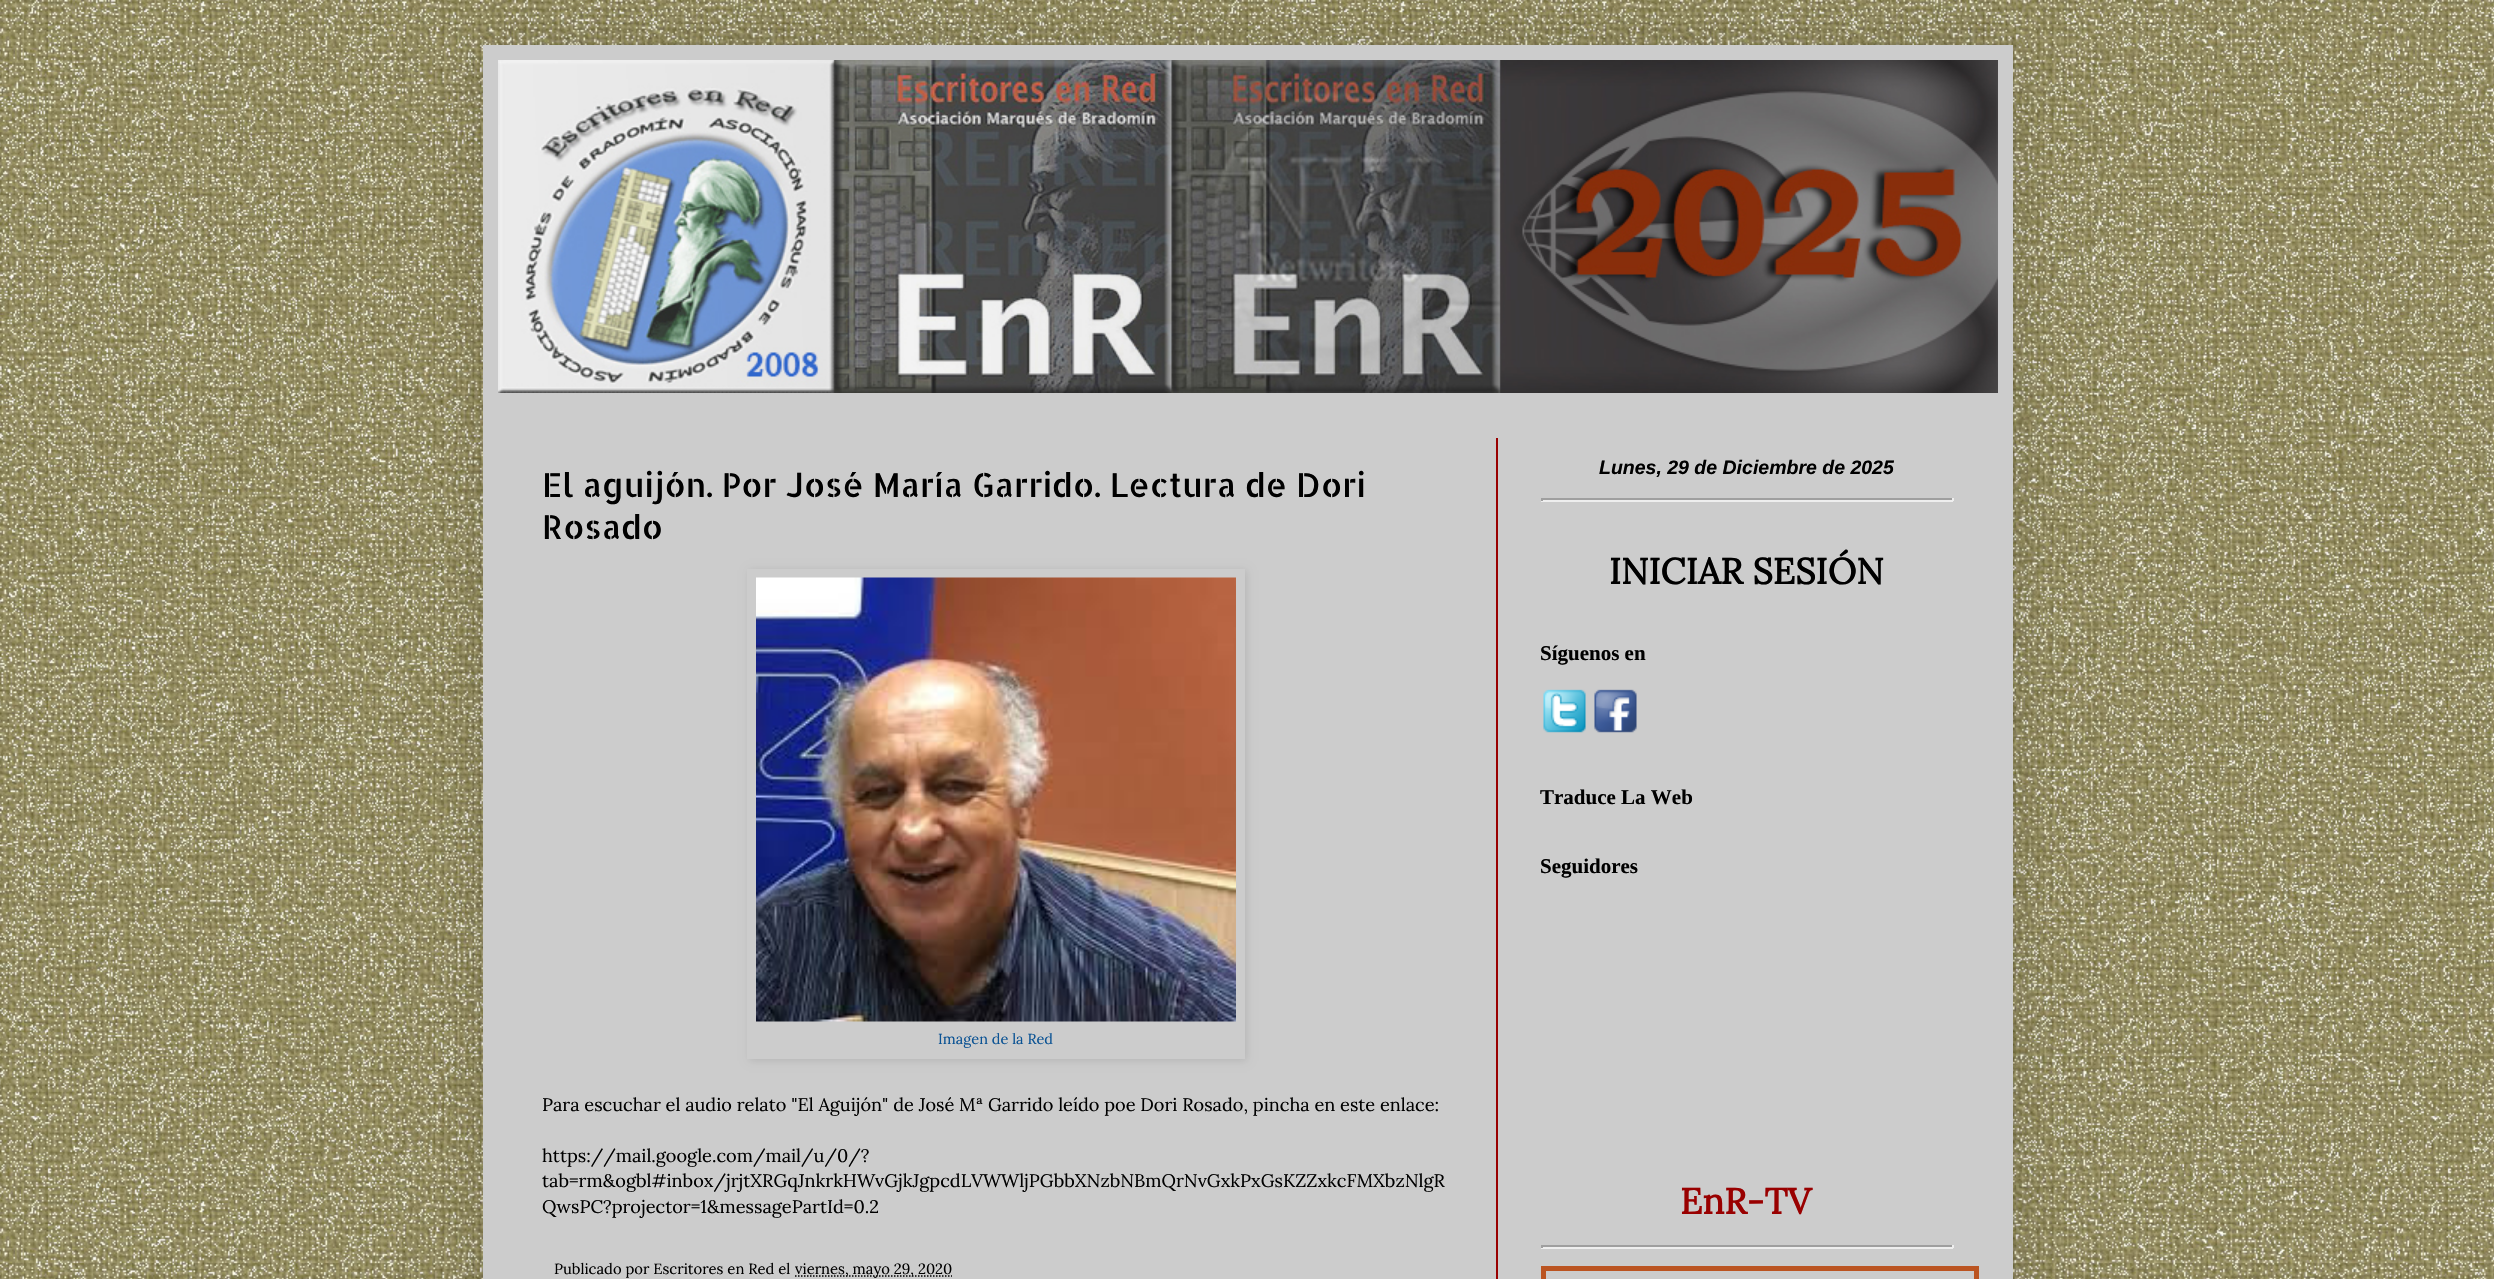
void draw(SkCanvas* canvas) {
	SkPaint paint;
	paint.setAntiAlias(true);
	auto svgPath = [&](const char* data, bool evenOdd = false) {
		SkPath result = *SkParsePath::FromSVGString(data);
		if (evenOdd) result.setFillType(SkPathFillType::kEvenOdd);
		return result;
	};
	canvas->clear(0xffffffff);
	canvas->drawImageRect(SkImages::DeferredFromEncodedData(SkData::MakeFromFileName("img1.png")), SkRect::MakeXYWH(0, 0, 2494, 1279), SkSamplingOptions());
	paint.setColor(0x26000000);
	paint.setMaskFilter(SkMaskFilter::MakeBlur(kNormal_SkBlurStyle, 30));
	canvas->drawRect(SkRect::MakeXYWH(483, 45, 1530, 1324), paint);
	paint.setMaskFilter(nullptr);
	paint.setColor(0xffcccccc);
	canvas->drawRect(SkRect::MakeXYWH(483, 45, 1530, 1234), paint);
	canvas->drawImageRect(SkImages::DeferredFromEncodedData(SkData::MakeFromFileName("img2.png")), SkRect::MakeXYWH(498, 60, 1500, 333), SkSamplingOptions());
	paint.setColor(0xff990000);
	canvas->drawRect(SkRect::MakeXYWH(1496, 438, 2, 841), paint);
	SkFont f1(fontMgr->matchFamilyStyle("Allerta Stencil", SkFontStyle::Normal()), 33);
	f1.setSubpixel(true);
	paint.setColor(0xff000000);
	canvas->drawString("El aguijón. Por José María Garrido. Lectura de Dori", 542, 497, f1, paint);
	canvas->drawString("Rosado", 542, 539, f1, paint);
	canvas->save();
	canvas->clipPath(svgPath("M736 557H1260V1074H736ZM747 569H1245V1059H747Z", true), true);
	paint.setColor(0x1a000000);
	paint.setMaskFilter(SkMaskFilter::MakeBlur(kNormal_SkBlurStyle, 4));
	canvas->drawRect(SkRect::MakeXYWH(749, 570, 498, 491), paint);
	paint.setMaskFilter(nullptr);
	canvas->restore();
	canvas->drawImageRect(SkImages::DeferredFromEncodedData(SkData::MakeFromFileName("img3.png")), SkRect::MakeXYWH(756, 577, 480, 445), SkSamplingOptions());
	SkFont f2(fontMgr->matchFamilyStyle("Lora", SkFontStyle::Normal()), 14.5);
	f2.setSubpixel(true);
	paint.setColor(0xff0b5394);
	canvas->drawString("Imagen de la Red", 938, 1044, f2, paint);
	SkFont f3(fontMgr->matchFamilyStyle("Lora", SkFontStyle::Normal()), 18.15);
	f3.setSubpixel(true);
	paint.setColor(0xff000000);
	canvas->drawString("Para escuchar el audio relato \"El Aguijón\" de José Mª Garrido leído poe Dori Rosado, pincha en este enlace:", 542, 1111, f3, paint);
	canvas->drawString("https://mail.google.com/mail/u/0/?", 542, 1162, f3, paint);
	canvas->drawString("tab=rm&ogbl#inbox/jrjtXRGqJnkrkHWvGjkJgpcdLVWWljPGbbXNzbNBmQrNvGxkPxGsKZZxkcFMXbzNlgR", 542, 1187, f3, paint);
	canvas->drawString("QwsPC?projector=1&messagePartId=0.2", 542, 1213, f3, paint);
	SkFont f4(fontMgr->matchFamilyStyle("Lora", SkFontStyle::Normal()), 14.8);
	f4.setSubpixel(true);
	canvas->drawString("Publicado por Escritores en Red el", 554, 1274, f4, paint);
	paint.setStroke(true);
	paint.setStrokeWidth(1.5);
	paint.setPathEffect(SkDashPathEffect::Make({{1.5f, 1.5f}}, 0));
	canvas->drawPath(svgPath("M795 1276H952"), paint);
	paint.setPathEffect(nullptr);
	paint.setStroke(false);
	canvas->drawString("viernes, mayo 29, 2020", 795, 1274, f4, paint);
	SkFont f5(fontMgr->matchFamilyStyle("Liberation Sans", SkFontStyle::BoldItalic()), 19.5);
	f5.setSubpixel(true);
	canvas->drawString("Lunes, 29 de Diciembre de 2025", 1599, 474, f5, paint);
	paint.setColor(0xff9f9f9f);
	canvas->drawRect(SkRect::MakeXYWH(1541, 498, 412, 2), paint);
	paint.setColor(0xffeeeeee);
	canvas->drawRect(SkRect::MakeXYWH(1952, 498, 2, 3), paint);
	canvas->drawRect(SkRect::MakeXYWH(1541, 500, 412, 2), paint);
	paint.setColor(0xff9f9f9f);
	canvas->drawRect(SkRect::MakeXYWH(1541, 498, 2, 3), paint);
	SkFont f6(fontMgr->matchFamilyStyle("Lora", SkFontStyle::Bold()), 36);
	f6.setSubpixel(true);
	paint.setColor(0xff000000);
	canvas->drawString("INICIAR SESIÓN", 1609, 584, f6, paint);
	SkFont f7(fontMgr->matchFamilyStyle("Liberation Serif", SkFontStyle::Bold()), 21);
	f7.setSubpixel(true);
	canvas->drawString("Síguenos en", 1540, 660, f7, paint);
	canvas->drawImageRect(SkImages::DeferredFromEncodedData(SkData::MakeFromFileName("img4.png")), SkRect::MakeXYWH(1543, 689, 43, 44), SkSamplingOptions());
	canvas->drawImageRect(SkImages::DeferredFromEncodedData(SkData::MakeFromFileName("img5.png")), SkRect::MakeXYWH(1594, 689, 43, 44), SkSamplingOptions());
	canvas->drawString("Traduce La Web", 1540, 804, f7, paint);
	canvas->drawString("Seguidores", 1540, 873, f7, paint);
	paint.setColor(0xff990000);
	canvas->drawString("EnR-TV", 1680, 1214, f6, paint);
	paint.setColor(0xff9f9f9f);
	canvas->drawRect(SkRect::MakeXYWH(1541, 1245, 412, 2), paint);
	paint.setColor(0xffeeeeee);
	canvas->drawRect(SkRect::MakeXYWH(1952, 1245, 2, 3), paint);
	canvas->drawRect(SkRect::MakeXYWH(1541, 1247, 412, 2), paint);
	paint.setColor(0xff9f9f9f);
	canvas->drawRect(SkRect::MakeXYWH(1541, 1245, 2, 3), paint);
	paint.setStroke(true);
	paint.setStrokeWidth(5);
	paint.setColor(0xffbb5421);
	canvas->drawRect(SkRect::MakeXYWH(1543.5, 1268.5, 433, 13), paint);
}
